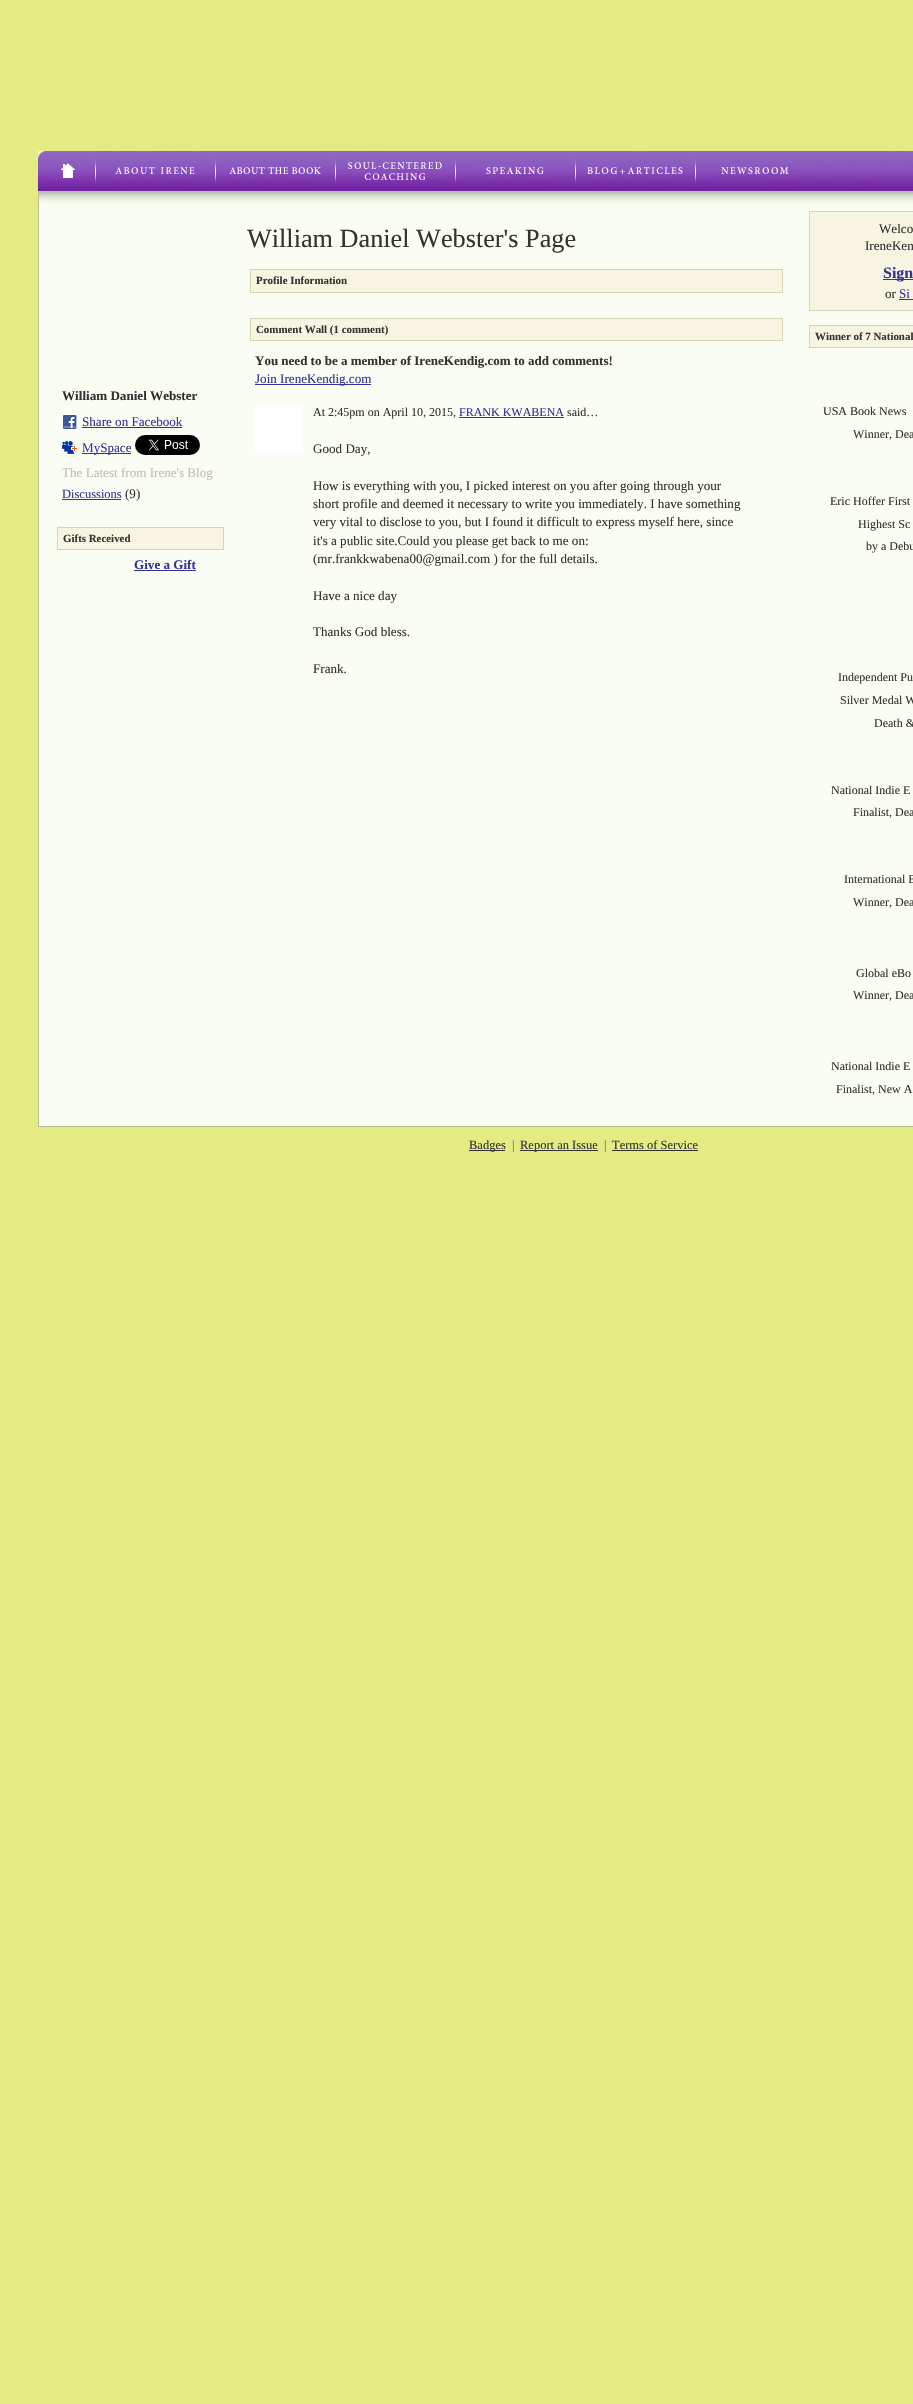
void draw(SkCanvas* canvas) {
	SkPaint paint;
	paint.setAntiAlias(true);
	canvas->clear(0xffe4eb82);
	canvas->drawImageRect(SkImages::DeferredFromEncodedData(SkData::MakeFromFileName("img1.png")), SkRect::MakeXYWH(38, 151, 875, 59), SkSamplingOptions());
	canvas->drawImageRect(SkImages::DeferredFromEncodedData(SkData::MakeFromFileName("img2.png")), SkRect::MakeXYWH(38, 151, 58, 40), SkSamplingOptions());
	canvas->drawImageRect(SkImages::DeferredFromEncodedData(SkData::MakeFromFileName("img3.png")), SkRect::MakeXYWH(112, 159, 104, 26), SkSamplingOptions());
	canvas->drawImageRect(SkImages::DeferredFromEncodedData(SkData::MakeFromFileName("img4.png")), SkRect::MakeXYWH(224, 159, 112, 25), SkSamplingOptions());
	canvas->drawImageRect(SkImages::DeferredFromEncodedData(SkData::MakeFromFileName("img5.png")), SkRect::MakeXYWH(344, 159, 112, 25), SkSamplingOptions());
	canvas->drawImageRect(SkImages::DeferredFromEncodedData(SkData::MakeFromFileName("img6.png")), SkRect::MakeXYWH(480, 159, 96, 25), SkSamplingOptions());
	canvas->drawImageRect(SkImages::DeferredFromEncodedData(SkData::MakeFromFileName("img7.png")), SkRect::MakeXYWH(584, 159, 112, 25), SkSamplingOptions());
	canvas->drawImageRect(SkImages::DeferredFromEncodedData(SkData::MakeFromFileName("img8.png")), SkRect::MakeXYWH(710, 167, 82, 10), SkSamplingOptions());
	paint.setColor(0xfffafdf4);
	canvas->drawRect(SkRect::MakeXYWH(39, 210, 874, 916), paint);
	paint.setColor(0xffbdb999);
	canvas->drawRect(SkRect::MakeXYWH(38, 210, 1, 916), paint);
	SkFont f1(fontMgr->matchFamilyStyle("Liberation Serif", SkFontStyle::Bold()), 13.1);
	f1.setSubpixel(true);
	paint.setColor(0xff333333);
	canvas->drawString("William Daniel Webster", 62, 400, f1, paint);
	canvas->drawImageRect(SkImages::DeferredFromEncodedData(SkData::MakeFromFileName("img9.png")), SkRect::MakeXYWH(63, 415, 14, 14), SkSamplingOptions());
	SkFont f2(fontMgr->matchFamilyStyle("Liberation Serif", SkFontStyle::Normal()), 13.1);
	f2.setSubpixel(true);
	paint.setColor(0xff333399);
	canvas->drawString("Share on Facebook", 82, 426, f2, paint);
	canvas->drawRect(SkRect::MakeXYWH(82, 427, 100, 1), paint);
	canvas->drawImageRect(SkImages::DeferredFromEncodedData(SkData::MakeFromFileName("img10.png")), SkRect::MakeXYWH(62, 441, 16, 13), SkSamplingOptions());
	canvas->drawRect(SkRect::MakeXYWH(82, 453, 49, 1), paint);
	canvas->drawString("MySpace", 82, 452, f2, paint);
	canvas->drawImageRect(SkImages::DeferredFromEncodedData(SkData::MakeFromFileName("img11.png")), SkRect::MakeXYWH(135, 435, 65, 20), SkSamplingOptions());
	paint.setColor(0xffbec0b9);
	canvas->drawString("The Latest from Irene's Blog", 62, 477, f2, paint);
	SkFont f3(fontMgr->matchFamilyStyle("Liberation Serif", SkFontStyle::Normal()), 12.5);
	f3.setSubpixel(true);
	paint.setColor(0xff333399);
	canvas->drawString("Discussions", 62, 498, f3, paint);
	canvas->drawRect(SkRect::MakeXYWH(62, 499, 59, 1), paint);
	paint.setColor(0xff333333);
	canvas->drawString("(9)", 125, 498, f2, paint);
	paint.setColor(0xfff7f4e1);
	canvas->drawRect(SkRect::MakeXYWH(57.5, 527.5, 166, 22), paint);
	paint.setStroke(true);
	paint.setStrokeWidth(1);
	paint.setColor(0xffd7d3b5);
	canvas->drawRect(SkRect::MakeXYWH(57.5, 527.5, 166, 22), paint);
	SkFont f4(fontMgr->matchFamilyStyle("Liberation Serif", SkFontStyle::Bold()), 10.9);
	f4.setSubpixel(true);
	paint.setStroke(false);
	paint.setColor(0xff333333);
	canvas->drawString("Gifts Received", 63, 542, f4, paint);
	paint.setColor(0xff333399);
	canvas->drawString("Give a Gift", 134, 569, f1, paint);
	canvas->drawRect(SkRect::MakeXYWH(134, 570, 62, 1), paint);
	SkFont f5(fontMgr->matchFamilyStyle("Liberation Serif", SkFontStyle::Normal()), 26.25);
	f5.setSubpixel(true);
	paint.setColor(0xff333333);
	canvas->drawString("William Daniel Webster's Page", 247, 247, f5, paint);
	paint.setColor(0xfff7f4e1);
	canvas->drawRect(SkRect::MakeXYWH(250.5, 269.5, 532, 23), paint);
	paint.setStroke(true);
	paint.setColor(0xffd7d3b5);
	canvas->drawRect(SkRect::MakeXYWH(250.5, 269.5, 532, 23), paint);
	paint.setStroke(false);
	paint.setColor(0xff333333);
	canvas->drawString("Profile Information", 256, 284, f4, paint);
	paint.setColor(0xfff7f4e1);
	canvas->drawRect(SkRect::MakeXYWH(250.5, 318.5, 532, 22), paint);
	paint.setStroke(true);
	paint.setColor(0xffd7d3b5);
	canvas->drawRect(SkRect::MakeXYWH(250.5, 318.5, 532, 22), paint);
	paint.setStroke(false);
	paint.setColor(0xff333333);
	canvas->drawString("Comment Wall (1 comment)", 256, 333, f4, paint);
	SkFont f6(fontMgr->matchFamilyStyle("Liberation Serif", SkFontStyle::Bold()), 13);
	f6.setSubpixel(true);
	canvas->drawString("You need to be a member of IreneKendig.com to add comments!", 255, 365, f6, paint);
	paint.setColor(0xff333399);
	canvas->drawRect(SkRect::MakeXYWH(255, 384, 116, 1), paint);
	canvas->drawString("Join IreneKendig.com", 255, 383, f2, paint);
	SkFont f7(fontMgr->matchFamilyStyle("Liberation Serif", SkFontStyle::Normal()), 12);
	f7.setSubpixel(true);
	paint.setColor(0xff333333);
	canvas->drawString("At 2:45pm on April 10, 2015,", 313, 416, f7, paint);
	paint.setColor(0xffffffff);
	canvas->drawRect(SkRect::MakeXYWH(255, 405, 48, 48), paint);
	paint.setColor(0xff333399);
	canvas->drawString("FRANK KWABENA", 459, 416, f7, paint);
	canvas->drawRect(SkRect::MakeXYWH(459, 417, 105, 1), paint);
	paint.setColor(0xff333333);
	canvas->drawString("said…", 567, 416, f7, paint);
	canvas->drawString("Good Day,", 313, 453, f2, paint);
	canvas->drawString("How is everything with you, I picked interest on you after going through your", 313, 490, f2, paint);
	canvas->drawString("short profile and deemed it necessary to write you immediately. I have something", 313, 508, f2, paint);
	canvas->drawString("very vital to disclose to you, but I found it difficult to express myself here, since", 313, 526, f2, paint);
	canvas->drawString("it's a public site.Could you please get back to me on:", 313, 545, f2, paint);
	canvas->drawString("(mr.frankkwabena00@gmail.com ) for the full details.", 313, 563, f2, paint);
	canvas->drawString("Have a nice day", 313, 600, f2, paint);
	canvas->drawString("Thanks God bless.", 313, 636, f2, paint);
	canvas->drawString("Frank.", 313, 673, f2, paint);
	paint.setColor(0xfff7f5e1);
	canvas->drawRect(SkRect::MakeXYWH(809.5, 211.5, 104, 99), paint);
	paint.setStroke(true);
	paint.setColor(0xffd7d3b5);
	canvas->drawRect(SkRect::MakeXYWH(809.5, 211.5, 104, 99), paint);
	paint.setStroke(false);
	paint.setColor(0xff333333);
	canvas->drawString("Welco", 879, 233, f2, paint);
	canvas->drawString("IreneKen", 865, 250, f2, paint);
	paint.setColor(0xff333399);
	canvas->drawRect(SkRect::MakeXYWH(883, 279, 30, 1), paint);
	SkFont f8(fontMgr->matchFamilyStyle("Liberation Serif", SkFontStyle::Bold()), 16);
	f8.setSubpixel(true);
	canvas->drawString("Sign", 883, 278, f8, paint);
	paint.setColor(0xff333333);
	canvas->drawString("or", 885, 298, f2, paint);
	paint.setColor(0xff333399);
	canvas->drawString("Si", 899, 298, f2, paint);
	canvas->drawRect(SkRect::MakeXYWH(899, 299, 14, 1), paint);
	paint.setColor(0xfff7f4e1);
	canvas->drawRect(SkRect::MakeXYWH(809.5, 325.5, 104, 22), paint);
	paint.setStroke(true);
	paint.setColor(0xffd7d3b5);
	canvas->drawRect(SkRect::MakeXYWH(809.5, 325.5, 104, 22), paint);
	paint.setStroke(false);
	paint.setColor(0xff333333);
	canvas->drawString("Winner of 7 National", 815, 340, f4, paint);
	canvas->drawString("USA Book News", 823, 415, f7, paint);
	canvas->drawString("Winner, Dea", 853, 438, f7, paint);
	canvas->drawString("Eric Hoffer First", 830, 505, f7, paint);
	canvas->drawString("Highest Sc", 858, 528, f7, paint);
	canvas->drawString("by a Debu", 866, 550, f7, paint);
	canvas->drawString("Independent Pu", 838, 681, f7, paint);
	canvas->drawString("Silver Medal W", 840, 704, f7, paint);
	canvas->drawString("Death &", 874, 727, f7, paint);
	canvas->drawString("National Indie E", 831, 794, f7, paint);
	canvas->drawString("Finalist, Dea", 853, 816, f7, paint);
	canvas->drawString("International B", 844, 883, f7, paint);
	canvas->drawString("Winner, Dea", 853, 906, f7, paint);
	canvas->drawString("Global eBo", 856, 977, f7, paint);
	canvas->drawString("Winner, Dea", 853, 999, f7, paint);
	canvas->drawString("National Indie E", 831, 1070, f7, paint);
	canvas->drawString("Finalist, New A", 836, 1093, f7, paint);
	paint.setColor(0xffbdb999);
	canvas->drawRect(SkRect::MakeXYWH(38, 1126, 875, 1), paint);
	paint.setColor(0xff333333);
	canvas->drawRect(SkRect::MakeXYWH(469, 1150, 36, 1), paint);
	canvas->drawString("Badges", 469, 1149, f3, paint);
	paint.setColor(0xff646561);
	canvas->drawString("|", 512, 1149, f3, paint);
	paint.setColor(0xff333333);
	canvas->drawRect(SkRect::MakeXYWH(520, 1150, 78, 1), paint);
	canvas->drawString("Report an Issue", 520, 1149, f3, paint);
	paint.setColor(0xff646561);
	canvas->drawString("|", 604, 1149, f3, paint);
	paint.setColor(0xff333333);
	canvas->drawString("Terms of Service", 612, 1149, f3, paint);
	canvas->drawRect(SkRect::MakeXYWH(612, 1150, 86, 1), paint);
}
